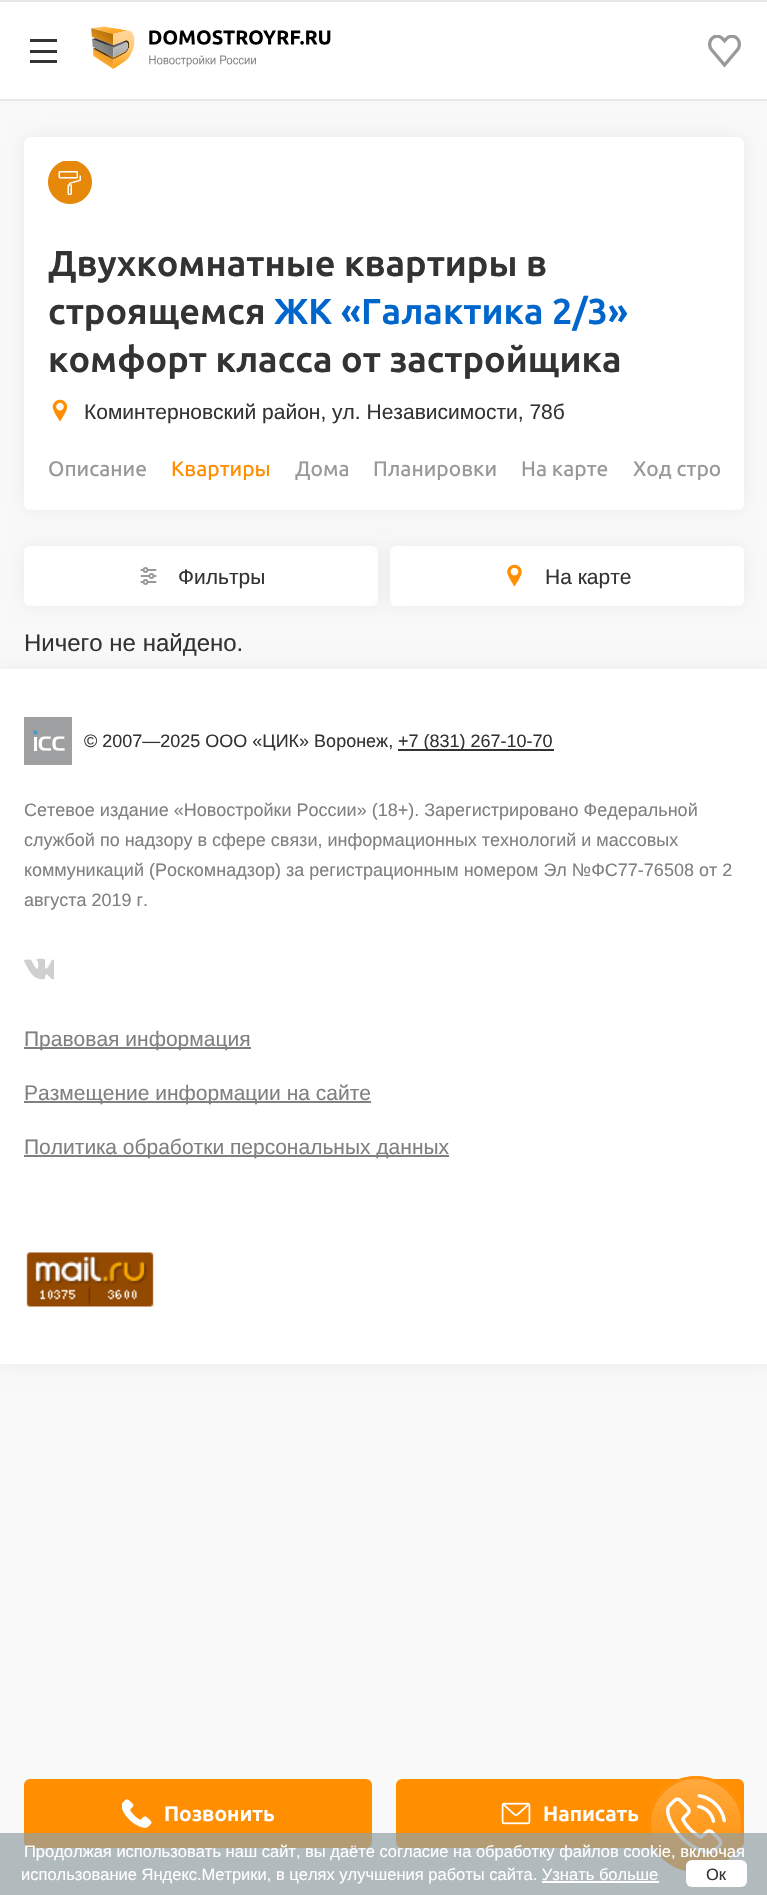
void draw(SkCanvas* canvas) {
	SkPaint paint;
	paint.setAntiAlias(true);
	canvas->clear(0xfff9f9f9);
	paint.setColor(0xffffffff);
	canvas->drawRect(SkRect::MakeXYWH(0, 2, 767, 97), paint);
	paint.setColor(0xffe7e7e7);
	canvas->drawRect(SkRect::MakeXYWH(0, 0, 767, 2), paint);
	canvas->drawRect(SkRect::MakeXYWH(0, 99, 767, 2), paint);
	paint.setColor(0xff333333);
	canvas->drawRect(SkRect::MakeXYWH(30, 50, 27, 3), paint);
	canvas->drawRect(SkRect::MakeXYWH(30, 39, 27, 3), paint);
	canvas->drawRect(SkRect::MakeXYWH(30, 60, 27, 3), paint);
	canvas->drawImageRect(SkImages::DeferredFromEncodedData(SkData::MakeFromFileName("img1.png")), SkRect::MakeXYWH(91, 26, 240, 43), SkSamplingOptions());
	canvas->drawImageRect(SkImages::DeferredFromEncodedData(SkData::MakeFromFileName("img2.png")), SkRect::MakeXYWH(708, 35, 33, 33), SkSamplingOptions());
	paint.setColor(0x0f000000);
	paint.setMaskFilter(SkMaskFilter::MakeBlur(kNormal_SkBlurStyle, 9));
	canvas->drawRoundRect(SkRect::MakeXYWH(24, 137, 720, 373), 6, 6, paint);
	paint.setMaskFilter(nullptr);
	paint.setColor(0xffffffff);
	canvas->drawRoundRect(SkRect::MakeXYWH(24, 137, 720, 373), 6, 6, paint);
	canvas->drawImageRect(SkImages::DeferredFromEncodedData(SkData::MakeFromFileName("img3.png")), SkRect::MakeXYWH(48, 161, 44, 43), SkSamplingOptions());
	SkFont f1(fontMgr->matchFamilyStyle("Ubuntu", SkFontStyle::Bold()), 36);
	f1.setSubpixel(true);
	paint.setColor(0xff333333);
	canvas->drawString("Двухкомнатные квартиры в", 48, 276, f1, paint);
	canvas->drawString("строящемся", 48, 324, f1, paint);
	paint.setColor(0xff0066cc);
	canvas->drawString("ЖК «Галактика 2/3»", 274, 324, f1, paint);
	paint.setColor(0xff333333);
	canvas->drawString("комфорт класса от застройщика", 48, 372, f1, paint);
	canvas->drawImageRect(SkImages::DeferredFromEncodedData(SkData::MakeFromFileName("img4.png")), SkRect::MakeXYWH(52, 399, 16, 23), SkSamplingOptions());
	SkFont f2(fontMgr->matchFamilyStyle("Liberation Sans", SkFontStyle::Normal()), 21);
	f2.setSubpixel(true);
	canvas->drawString("Коминтерновский район, ул. Независимости, 78б", 84, 419, f2, paint);
	SkFont f3(fontMgr->matchFamilyStyle("Ubuntu", SkFontStyle(500, SkFontStyle::kNormal_Width, SkFontStyle::kUpright_Slant)), 21);
	f3.setSubpixel(true);
	paint.setColor(0xff999999);
	canvas->drawString("Описание", 48, 476, f3, paint);
	paint.setColor(0xffff8e01);
	canvas->drawString("Квартиры", 171, 476, f3, paint);
	paint.setColor(0xff999999);
	canvas->drawString("Дома", 295, 476, f3, paint);
	canvas->drawString("Планировки", 373, 476, f3, paint);
	canvas->drawString("На карте", 521, 476, f3, paint);
	canvas->drawString("Ход стро", 633, 476, f3, paint);
	paint.setColor(0x0f000000);
	paint.setMaskFilter(SkMaskFilter::MakeBlur(kNormal_SkBlurStyle, 9));
	canvas->drawRoundRect(SkRect::MakeXYWH(24, 546, 354, 60), 6, 6, paint);
	paint.setMaskFilter(nullptr);
	paint.setColor(0xffffffff);
	canvas->drawRoundRect(SkRect::MakeXYWH(24, 546, 354, 60), 6, 6, paint);
	canvas->drawImageRect(SkImages::DeferredFromEncodedData(SkData::MakeFromFileName("img5.png")), SkRect::MakeXYWH(140, 567, 17, 18), SkSamplingOptions());
	paint.setColor(0xff333333);
	canvas->drawString("Фильтры", 178, 584, f2, paint);
	paint.setColor(0x0f000000);
	paint.setMaskFilter(SkMaskFilter::MakeBlur(kNormal_SkBlurStyle, 9));
	canvas->drawRoundRect(SkRect::MakeXYWH(390, 546, 354, 60), 6, 6, paint);
	paint.setMaskFilter(nullptr);
	paint.setColor(0xffffffff);
	canvas->drawRoundRect(SkRect::MakeXYWH(390, 546, 354, 60), 6, 6, paint);
	canvas->drawImageRect(SkImages::DeferredFromEncodedData(SkData::MakeFromFileName("img6.png")), SkRect::MakeXYWH(507, 564, 15, 23), SkSamplingOptions());
	paint.setColor(0xff333333);
	canvas->drawString("На карте", 545, 584, f2, paint);
	paint.setColor(0x0f000000);
	paint.setMaskFilter(SkMaskFilter::MakeBlur(kNormal_SkBlurStyle, 9));
	canvas->drawRect(SkRect::MakeXYWH(0, 669, 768, 695), paint);
	paint.setMaskFilter(nullptr);
	SkFont f4(fontMgr->matchFamilyStyle("Liberation Sans", SkFontStyle::Normal()), 24);
	f4.setSubpixel(true);
	paint.setColor(0xff333333);
	canvas->drawString("Ничего не найдено.", 24, 651, f4, paint);
	paint.setColor(0xffff8e01);
	canvas->drawRoundRect(SkRect::MakeXYWH(24, 1779, 348, 69), 6, 6, paint);
	canvas->drawImageRect(SkImages::DeferredFromEncodedData(SkData::MakeFromFileName("img7.png")), SkRect::MakeXYWH(122, 1799, 30, 29), SkSamplingOptions());
	SkFont f5(fontMgr->matchFamilyStyle("Ubuntu", SkFontStyle::Bold()), 21);
	f5.setSubpixel(true);
	paint.setColor(0xffffffff);
	canvas->drawString("Позвонить", 164, 1821, f5, paint);
	paint.setColor(0xffff8e01);
	canvas->drawRoundRect(SkRect::MakeXYWH(396, 1779, 348, 69), 6, 6, paint);
	canvas->drawImageRect(SkImages::DeferredFromEncodedData(SkData::MakeFromFileName("img8.png")), SkRect::MakeXYWH(501, 1802, 30, 23), SkSamplingOptions());
	paint.setColor(0xffffffff);
	canvas->drawString("Написать", 543, 1821, f5, paint);
	canvas->drawRect(SkRect::MakeXYWH(0, 669, 767, 695), paint);
	canvas->drawImageRect(SkImages::DeferredFromEncodedData(SkData::MakeFromFileName("img9.png")), SkRect::MakeXYWH(24, 717, 48, 48), SkSamplingOptions());
	SkFont f6(fontMgr->matchFamilyStyle("Liberation Sans", SkFontStyle::Normal()), 18);
	f6.setSubpixel(true);
	paint.setColor(0xff333333);
	canvas->drawString("© 2007—2025 ООО «ЦИК» Воронеж,", 84, 747, f6, paint);
	canvas->drawRect(SkRect::MakeXYWH(398, 749, 156, 2), paint);
	canvas->drawString("+7 (831) 267-10-70", 398, 747, f6, paint);
	paint.setColor(0xff808080);
	canvas->drawString("Сетевое издание «Новостройки России» (18+). Зарегистрировано Федеральной", 24, 816, f6, paint);
	canvas->drawString("службой по надзору в сфере связи, информационных технологий и массовых", 24, 846, f6, paint);
	canvas->drawString("коммуникаций (Роскомнадзор) за регистрационным номером Эл №ФС77-76508 от 2", 24, 876, f6, paint);
	canvas->drawString("августа 2019 г.", 24, 906, f6, paint);
	canvas->drawImageRect(SkImages::DeferredFromEncodedData(SkData::MakeFromFileName("img10.png")), SkRect::MakeXYWH(24, 958, 30, 22), SkSamplingOptions());
	canvas->drawRect(SkRect::MakeXYWH(24, 1047, 227, 2), paint);
	canvas->drawString("Правовая информация", 24, 1046, f2, paint);
	canvas->drawRect(SkRect::MakeXYWH(24, 1101, 347, 2), paint);
	canvas->drawString("Размещение информации на сайте", 24, 1100, f2, paint);
	canvas->drawRect(SkRect::MakeXYWH(24, 1155, 425, 2), paint);
	canvas->drawString("Политика обработки персональных данных", 24, 1154, f2, paint);
	canvas->drawImageRect(SkImages::DeferredFromEncodedData(SkData::MakeFromFileName("img11.png")), SkRect::MakeXYWH(26, 1252, 128, 55), SkSamplingOptions());
	{
		const SkColor colors[] = {0xffffaa41, 0xffff8e01};
		const float stops[] = {0, 1};
		const SkPoint ends[] = {{696, 1776}, {696, 1872}};
		paint.setShader(SkGradientShader::MakeLinear(ends, colors, stops, 2, SkTileMode::kClamp));
		paint.setAlpha(255);
	}
	canvas->drawCircle(696, 1824, 48, paint);
	canvas->drawImageRect(SkImages::DeferredFromEncodedData(SkData::MakeFromFileName("img12.png")), SkRect::MakeXYWH(666, 1794, 60, 60), SkSamplingOptions());
	paint.setStroke(true);
	paint.setStrokeWidth(3);
	paint.setShader(nullptr);
	paint.setColor(0xe6ff8e01);
	canvas->drawCircle(696, 1824, 46.5, paint);
	paint.setStroke(false);
	paint.setColor(0xb3939fa4);
	canvas->drawRect(SkRect::MakeXYWH(0, 1833, 767, 62), paint);
	SkFont f7(fontMgr->matchFamilyStyle("Liberation Sans", SkFontStyle::Normal()), 16.5);
	f7.setSubpixel(true);
	paint.setColor(0xffffffff);
	canvas->drawString("Продолжая использовать наш сайт, вы даёте согласие на обработку файлов cookie, включая", 24, 1857, f7, paint);
	canvas->drawString("использование Яндекс.Метрики, в целях улучшения работы сайта. Узнать больше", 21, 1880, f7, paint);
	canvas->drawRoundRect(SkRect::MakeXYWH(686, 1860, 61, 27), 6, 6, paint);
	paint.setColor(0xff333333);
	canvas->drawString("Ок", 706, 1880, f7, paint);
	paint.setColor(0xffffffff);
	canvas->drawRect(SkRect::MakeXYWH(542, 1881, 117, 2), paint);
}
